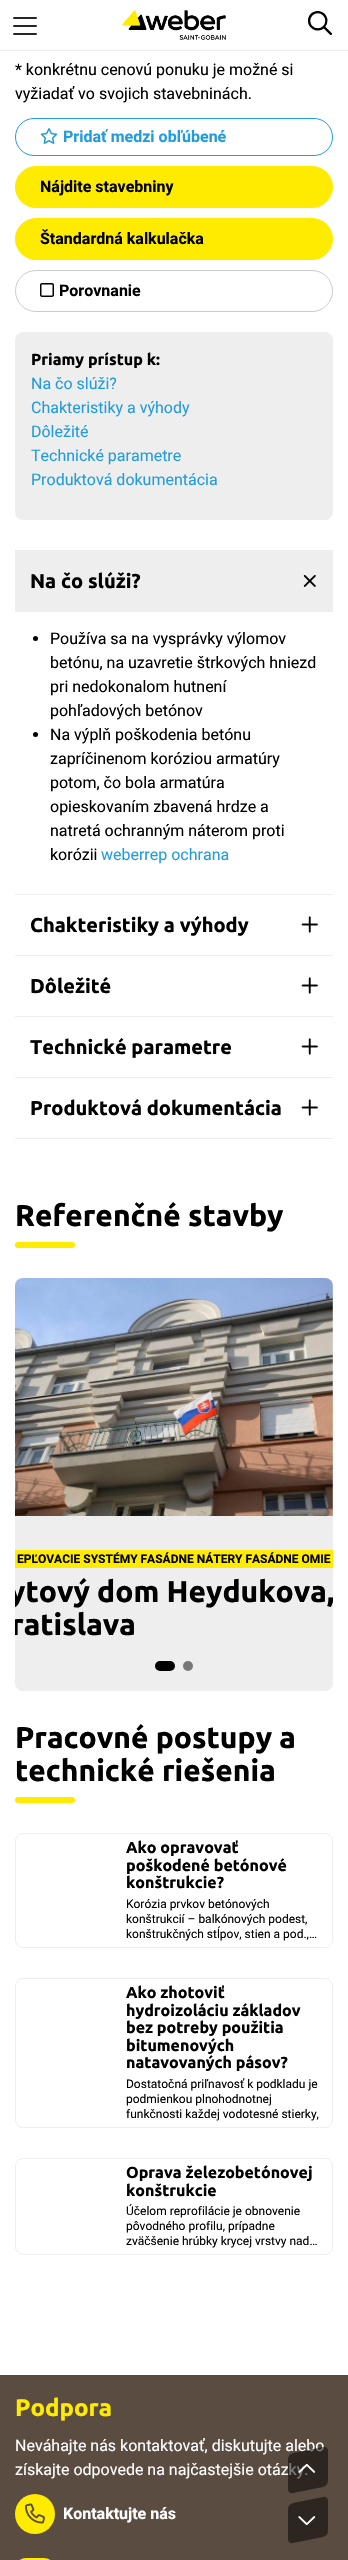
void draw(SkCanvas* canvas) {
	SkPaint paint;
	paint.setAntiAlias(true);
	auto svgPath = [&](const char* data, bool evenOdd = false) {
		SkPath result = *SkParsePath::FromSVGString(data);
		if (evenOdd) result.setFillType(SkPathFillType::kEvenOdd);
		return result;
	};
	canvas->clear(0xffffffff);
	paint.setColor(0xffeeeeee);
	canvas->drawRect(SkRect::MakeXYWH(0, 50, 348, 1), paint);
	paint.setColor(0xff262626);
	canvas->drawRoundRect(SkRect::MakeXYWH(13, 25, 24, 2), 1, 1, paint);
	canvas->drawRoundRect(SkRect::MakeXYWH(13, 17, 24, 2), 1, 1, paint);
	canvas->drawRoundRect(SkRect::MakeXYWH(13, 33, 24, 2), 1, 1, paint);
	canvas->drawImageRect(SkImages::DeferredFromEncodedData(SkData::MakeFromFileName("img1.png")), SkRect::MakeXYWH(122, 10, 104, 30), SkSamplingOptions());
	canvas->drawImageRect(SkImages::DeferredFromEncodedData(SkData::MakeFromFileName("img2.png")), SkRect::MakeXYWH(308, 11, 24, 24), SkSamplingOptions());
	SkFont f1(fontMgr->matchFamilyStyle("Roboto", SkFontStyle::Normal()), 16);
	f1.setSubpixel(true);
	paint.setColor(0xff000000);
	canvas->drawString("* konkrétnu cenovú ponuku je možné si", 15, 75, f1, paint);
	canvas->drawString("vyžiadať vo svojich stavebninách.", 15, 99, f1, paint);
	paint.setStroke(true);
	paint.setStrokeWidth(1);
	paint.setColor(0xff219cdc);
	canvas->drawRoundRect(SkRect::MakeXYWH(15.5, 118.5, 317, 37), 18.5, 18.5, paint);
	canvas->drawImageRect(SkImages::DeferredFromEncodedData(SkData::MakeFromFileName("img3.png")), SkRect::MakeXYWH(40, 128, 18, 16), SkSamplingOptions());
	SkFont f2(fontMgr->matchFamilyStyle("Roboto", SkFontStyle::Bold()), 16);
	f2.setSubpixel(true);
	paint.setStroke(false);
	canvas->drawString("Pridať medzi obľúbené", 63, 142, f2, paint);
	paint.setColor(0xffffeb00);
	canvas->drawRoundRect(SkRect::MakeXYWH(15.5, 166.5, 317, 41), 20.5, 20.5, paint);
	paint.setStroke(true);
	canvas->drawRoundRect(SkRect::MakeXYWH(15.5, 166.5, 317, 41), 20.5, 20.5, paint);
	paint.setStroke(false);
	paint.setColor(0xff000000);
	canvas->drawString("Nájdite stavebniny", 40, 192, f2, paint);
	paint.setColor(0xffffeb00);
	canvas->drawRoundRect(SkRect::MakeXYWH(15.5, 218.5, 317, 41), 20.5, 20.5, paint);
	paint.setStroke(true);
	canvas->drawRoundRect(SkRect::MakeXYWH(15.5, 218.5, 317, 41), 20.5, 20.5, paint);
	paint.setStroke(false);
	paint.setColor(0xff000000);
	canvas->drawString("Štandardná kalkulačka", 40, 244, f2, paint);
	paint.setStroke(true);
	paint.setColor(0xffcccccc);
	canvas->drawRoundRect(SkRect::MakeXYWH(15.5, 270.5, 317, 41), 20.5, 20.5, paint);
	canvas->drawImageRect(SkImages::DeferredFromEncodedData(SkData::MakeFromFileName("img4.png")), SkRect::MakeXYWH(40, 283, 14, 14), SkSamplingOptions());
	paint.setStroke(false);
	paint.setColor(0xff000000);
	canvas->drawString("Porovnanie", 59, 296, f2, paint);
	paint.setColor(0xffeeeeee);
	canvas->drawRoundRect(SkRect::MakeXYWH(15.5, 332.5, 317, 187), 7.5, 7.5, paint);
	paint.setStroke(true);
	canvas->drawRoundRect(SkRect::MakeXYWH(15.5, 332.5, 317, 187), 7.5, 7.5, paint);
	SkFont f3(fontMgr->matchFamilyStyle("Ubuntu", SkFontStyle::Bold()), 16);
	f3.setSubpixel(true);
	paint.setStroke(false);
	paint.setColor(0xff000000);
	canvas->drawString("Priamy prístup k:", 31, 365, f3, paint);
	paint.setColor(0xff219cdc);
	canvas->drawString("Na čo slúži?", 31, 389, f1, paint);
	canvas->drawString("Chakteristiky a výhody", 31, 413, f1, paint);
	canvas->drawString("Dôležité", 31, 437, f1, paint);
	canvas->drawString("Technické parametre", 31, 461, f1, paint);
	canvas->drawString("Produktová dokumentácia", 31, 485, f1, paint);
	paint.setColor(0xffeeeeee);
	canvas->drawRect(SkRect::MakeXYWH(15, 550, 318, 62), paint);
	SkFont f4(fontMgr->matchFamilyStyle("Ubuntu", SkFontStyle::Bold()), 20);
	f4.setSubpixel(true);
	paint.setColor(0xff000000);
	canvas->drawString("Na čo slúži?", 30, 588, f4, paint);
	canvas->drawImageRect(SkImages::DeferredFromEncodedData(SkData::MakeFromFileName("img5.png")), SkRect::MakeXYWH(303, 575, 13, 12), SkSamplingOptions());
	canvas->drawCircle(35.5, 638.5, 2.5, paint);
	canvas->drawString("Používa sa na vysprávky výlomov", 50, 644, f1, paint);
	canvas->drawString("betónu, na uzavretie štrkových hniezd", 50, 668, f1, paint);
	canvas->drawString("pri nedokonalom hutnení", 50, 692, f1, paint);
	canvas->drawString("pohľadových betónov", 50, 716, f1, paint);
	canvas->drawCircle(35.5, 734.5, 2.5, paint);
	canvas->drawString("Na výplň poškodenia betónu", 50, 740, f1, paint);
	canvas->drawString("zapríčinenom koróziou armatúry", 50, 764, f1, paint);
	canvas->drawString("potom, čo bola armatúra", 50, 788, f1, paint);
	canvas->drawString("opieskovaním zbavená hrdze a", 50, 812, f1, paint);
	canvas->drawString("natretá ochranným náterom proti", 50, 836, f1, paint);
	canvas->drawString("korózii", 50, 860, f1, paint);
	paint.setColor(0xff219cdc);
	canvas->drawString("weberrep ochrana", 101, 860, f1, paint);
	paint.setColor(0xffeeeeee);
	canvas->drawRect(SkRect::MakeXYWH(15, 894, 318, 1), paint);
	paint.setColor(0xff000000);
	canvas->drawString("Chakteristiky a výhody", 30, 932, f4, paint);
	canvas->drawImageRect(SkImages::DeferredFromEncodedData(SkData::MakeFromFileName("img6.png")), SkRect::MakeXYWH(301, 916, 17, 17), SkSamplingOptions());
	paint.setColor(0xffeeeeee);
	canvas->drawRect(SkRect::MakeXYWH(15, 955, 318, 1), paint);
	paint.setColor(0xff000000);
	canvas->drawString("Dôležité", 30, 993, f4, paint);
	canvas->drawImageRect(SkImages::DeferredFromEncodedData(SkData::MakeFromFileName("img6.png")), SkRect::MakeXYWH(301, 977, 17, 17), SkSamplingOptions());
	paint.setColor(0xffeeeeee);
	canvas->drawRect(SkRect::MakeXYWH(15, 1016, 318, 1), paint);
	paint.setColor(0xff000000);
	canvas->drawString("Technické parametre", 30, 1054, f4, paint);
	canvas->drawImageRect(SkImages::DeferredFromEncodedData(SkData::MakeFromFileName("img6.png")), SkRect::MakeXYWH(301, 1038, 17, 17), SkSamplingOptions());
	paint.setColor(0xffeeeeee);
	canvas->drawRect(SkRect::MakeXYWH(15, 1077, 318, 1), paint);
	canvas->drawRect(SkRect::MakeXYWH(15, 1138, 318, 1), paint);
	paint.setColor(0xff000000);
	canvas->drawString("Produktová dokumentácia", 30, 1115, f4, paint);
	canvas->drawImageRect(SkImages::DeferredFromEncodedData(SkData::MakeFromFileName("img6.png")), SkRect::MakeXYWH(301, 1099, 17, 17), SkSamplingOptions());
	SkFont f5(fontMgr->matchFamilyStyle("Ubuntu", SkFontStyle::Bold()), 30);
	f5.setSubpixel(true);
	canvas->drawString("Referenčné stavby", 15, 1226, f5, paint);
	paint.setColor(0xffffeb00);
	canvas->drawRoundRect(SkRect::MakeXYWH(15, 1242, 60, 6), 3, 3, paint);
	paint.setColor(0xffeeeeee);
	canvas->drawRoundRect(SkRect::MakeXYWH(15, 1278, 318, 413), 8, 8, paint);
	canvas->drawImageRect(SkImages::DeferredFromEncodedData(SkData::MakeFromFileName("img7.png")), SkRect::MakeXYWH(15, 1278, 318, 238), SkSamplingOptions());
	paint.setColor(0xffffeb00);
	canvas->drawRect(SkRect::MakeXYWH(15, 1550, 318, 18), paint);
	SkFont f6(fontMgr->matchFamilyStyle("Roboto", SkFontStyle::Bold()), 12);
	f6.setSubpixel(true);
	paint.setColor(0xff000000);
	canvas->drawString("EPĽOVACIE SYSTÉMY FASÁDNE NÁTERY FASÁDNE OMIE", 17, 1563, f6, paint);
	canvas->save();
	canvas->clipPath(svgPath("M23 1278H325C329.5 1278 333 1281.5 333 1286V1683C333 1687.5 329.5 1691 325 1691H23C18.5 1691 15 1687.5 15 1683V1286C15 1281.5 18.5 1278 23 1278Z"), true);
	canvas->drawString("ytový dom Heydukova,", 9, 1602, f5, paint);
	canvas->drawString("ratislava", 11, 1635, f5, paint);
	canvas->restore();
	canvas->drawRoundRect(SkRect::MakeXYWH(155, 1661, 20, 10), 5, 5, paint);
	paint.setColor(0xff777777);
	canvas->drawCircle(188, 1666, 5, paint);
	paint.setColor(0xff000000);
	canvas->drawString("Pracovné postupy a", 15, 1748, f5, paint);
	canvas->drawString("technické riešenia", 15, 1781, f5, paint);
	paint.setColor(0xffffeb00);
	canvas->drawRoundRect(SkRect::MakeXYWH(15, 1797, 60, 6), 3, 3, paint);
	paint.setStroke(true);
	paint.setColor(0xffeeeeee);
	canvas->drawRoundRect(SkRect::MakeXYWH(15.5, 1833.5, 317, 114), 7.5, 7.5, paint);
	paint.setStroke(false);
	paint.setColor(0xff000000);
	canvas->drawString("Ako opravovať", 126, 1853, f3, paint);
	canvas->drawString("poškodené betónové", 126, 1871, f3, paint);
	canvas->drawString("konštrukcie?", 126, 1888, f3, paint);
	SkFont f7(fontMgr->matchFamilyStyle("Roboto", SkFontStyle::Normal()), 12);
	f7.setSubpixel(true);
	canvas->drawString("Korózia prvkov betónových", 126, 1908, f7, paint);
	canvas->drawString("konštrukcií – balkónových podest,", 126, 1923, f7, paint);
	canvas->drawString("konštrukčných stĺpov, stien a pod.,…", 126, 1938, f7, paint);
	paint.setStroke(true);
	paint.setColor(0xffeeeeee);
	canvas->drawRoundRect(SkRect::MakeXYWH(15.5, 1978.5, 317, 149), 7.5, 7.5, paint);
	paint.setStroke(false);
	paint.setColor(0xff000000);
	canvas->drawString("Ako zhotoviť", 126, 1998, f3, paint);
	canvas->drawString("hydroizoláciu základov", 126, 2016, f3, paint);
	canvas->drawString("bez potreby použitia", 126, 2033, f3, paint);
	canvas->drawString("bitumenových", 126, 2051, f3, paint);
	canvas->drawString("natavovaných pásov?", 126, 2068, f3, paint);
	canvas->drawString("Dostatočná priľnavosť k podkladu je", 126, 2088, f7, paint);
	canvas->drawString("podmienkou plnohodnotnej", 126, 2103, f7, paint);
	canvas->drawString("funkčnosti každej vodotesné stierky,", 126, 2118, f7, paint);
	paint.setStroke(true);
	paint.setColor(0xffeeeeee);
	canvas->drawRoundRect(SkRect::MakeXYWH(15.5, 2158.5, 317, 96), 7.5, 7.5, paint);
	paint.setStroke(false);
	paint.setColor(0xff000000);
	canvas->drawString("Oprava železobetónovej", 126, 2178, f3, paint);
	canvas->drawString("konštrukcie", 126, 2196, f3, paint);
	canvas->drawString("Účelom reprofilácie je obnovenie", 126, 2215, f7, paint);
	canvas->drawString("pôvodného profilu, prípadne", 126, 2230, f7, paint);
	canvas->drawString("zväčšenie hrúbky krycej vrstvy nad…", 126, 2245, f7, paint);
	paint.setColor(0xff5a4c40);
	canvas->drawRect(SkRect::MakeXYWH(0, 2375, 348, 185), paint);
	paint.setColor(0xffffffff);
	canvas->drawString("Neváhajte nás kontaktovať, diskutujte alebo", 15, 2451, f1, paint);
	canvas->drawString("získajte odpovede na najčastejšie otázky.", 15, 2475, f1, paint);
	paint.setColor(0x80000000);
	canvas->drawPath(svgPath("M293 2453L323 2447C326 2446 328 2448 328 2451V2481C328 2484 326 2486 323 2487L293 2493C290 2494 288 2492 288 2489V2459C288 2456 290 2454 293 2453Z"), paint);
	canvas->drawImageRect(SkImages::DeferredFromEncodedData(SkData::MakeFromFileName("img8.png")), SkRect::MakeXYWH(298, 2463, 18, 10), SkSamplingOptions());
	paint.setColor(0xff2d2620);
	canvas->drawPath(svgPath("M293 2503L323 2497C326 2496 328 2498 328 2501V2531C328 2534 326 2536 323 2537L293 2543C290 2544 288 2542 288 2539V2509C288 2506 290 2504 293 2503Z"), paint);
	canvas->drawImageRect(SkImages::DeferredFromEncodedData(SkData::MakeFromFileName("img9.png")), SkRect::MakeXYWH(298, 2516, 18, 10), SkSamplingOptions());
	SkFont f8(fontMgr->matchFamilyStyle("Ubuntu", SkFontStyle::Bold()), 24);
	f8.setSubpixel(true);
	paint.setColor(0xffffeb00);
	canvas->drawString("Podpora", 15, 2416, f8, paint);
	canvas->drawCircle(35, 2514, 20, paint);
	canvas->drawImageRect(SkImages::DeferredFromEncodedData(SkData::MakeFromFileName("img10.png")), SkRect::MakeXYWH(25, 2503, 20, 21), SkSamplingOptions());
	paint.setColor(0xffffffff);
	canvas->drawString("Kontaktujte nás", 63, 2519, f2, paint);
	paint.setColor(0xffffeb00);
	canvas->drawRoundRect(SkRect::MakeXYWH(15, 2558, 40, 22), 20, 20, paint);
}
